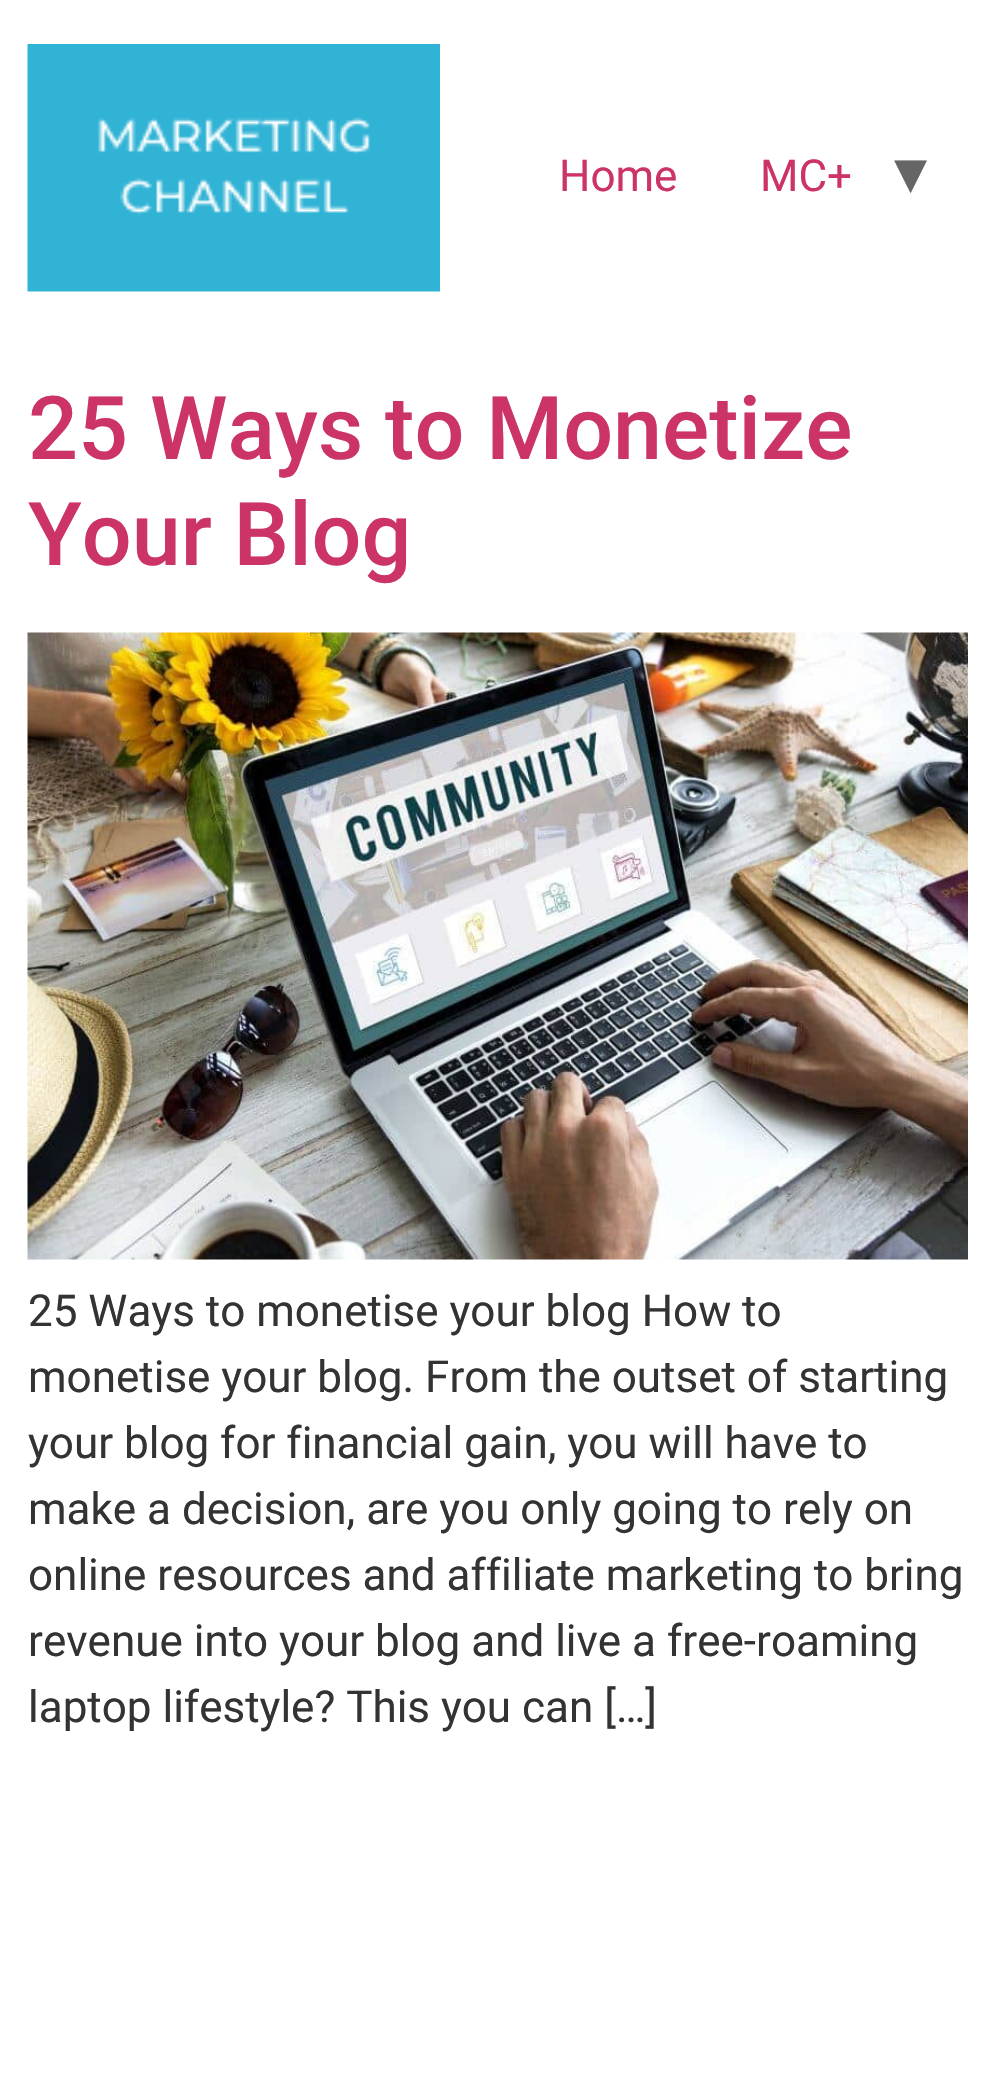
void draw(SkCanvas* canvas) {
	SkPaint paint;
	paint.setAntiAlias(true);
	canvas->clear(0xffffffff);
	canvas->drawImageRect(SkImages::DeferredFromEncodedData(SkData::MakeFromFileName("img1.png")), SkRect::MakeXYWH(27, 44, 413, 248), SkSamplingOptions());
	SkFont f1(fontMgr->matchFamilyStyle("Roboto", SkFontStyle::Normal()), 44);
	f1.setSubpixel(true);
	paint.setColor(0xffcc3366);
	canvas->drawString("Home", 559, 191, f1, paint);
	canvas->drawString("MC+", 760, 191, f1, paint);
	SkFont f2(fontMgr->matchFamilyStyle("DejaVu Sans", SkFontStyle::Normal()), 66);
	f2.setSubpixel(true);
	paint.setColor(0xff666666);
	canvas->drawString("▾", 894, 194, f2, paint);
	SkFont f3(fontMgr->matchFamilyStyle("Roboto", SkFontStyle(500, SkFontStyle::kNormal_Width, SkFontStyle::kUpright_Slant)), 88);
	f3.setSubpixel(true);
	paint.setColor(0xffcc3366);
	canvas->drawString("25 Ways to Monetize", 28, 459, f3, paint);
	canvas->drawString("Your Blog", 28, 565, f3, paint);
	canvas->drawImageRect(SkImages::DeferredFromEncodedData(SkData::MakeFromFileName("img2.png")), SkRect::MakeXYWH(27, 632, 941, 628), SkSamplingOptions());
	paint.setColor(0xff333333);
	canvas->drawString("25 Ways to monetise your blog How to", 28, 1326, f1, paint);
	canvas->drawString("monetise your blog. From the outset of starting", 28, 1392, f1, paint);
	canvas->drawString("your blog for financial gain, you will have to", 28, 1458, f1, paint);
	canvas->drawString("make a decision, are you only going to rely on", 28, 1524, f1, paint);
	canvas->drawString("online resources and affiliate marketing to bring", 28, 1590, f1, paint);
	canvas->drawString("revenue into your blog and live a free-roaming", 28, 1656, f1, paint);
	canvas->drawString("laptop lifestyle? This you can […]", 28, 1722, f1, paint);
}
